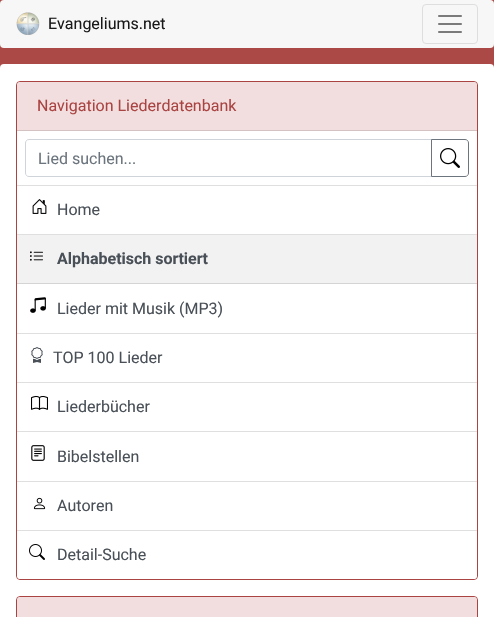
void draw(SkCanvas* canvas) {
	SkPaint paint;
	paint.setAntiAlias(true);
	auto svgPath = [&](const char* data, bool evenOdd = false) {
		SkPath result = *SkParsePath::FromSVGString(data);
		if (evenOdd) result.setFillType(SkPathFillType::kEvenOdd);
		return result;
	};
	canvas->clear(0xffab4947);
	paint.setColor(0xfff7f7f7);
	canvas->drawRoundRect(SkRect::MakeXYWH(0, 0, 494, 48), 4, 4, paint);
	canvas->drawImageRect(SkImages::DeferredFromEncodedData(SkData::MakeFromFileName("img1.png")), SkRect::MakeXYWH(16, 12, 24, 23), SkSamplingOptions());
	SkFont f1(fontMgr->matchFamilyStyle("Roboto", SkFontStyle::Normal()), 16);
	f1.setSubpixel(true);
	paint.setColor(0xff191919);
	canvas->drawString("Evangeliums.net", 48, 29, f1, paint);
	paint.setStroke(true);
	paint.setStrokeWidth(1);
	paint.setColor(0xffdedede);
	canvas->drawRoundRect(SkRect::MakeXYWH(422.5, 4.5, 55, 39), 3.5, 3.5, paint);
	canvas->drawImageRect(SkImages::DeferredFromEncodedData(SkData::MakeFromFileName("img2.png")), SkRect::MakeXYWH(438, 15, 24, 18), SkSamplingOptions());
	paint.setStroke(false);
	paint.setColor(0xffffffff);
	canvas->drawRoundRect(SkRect::MakeXYWH(0, 64, 494, 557), 4, 4, paint);
	paint.setStroke(true);
	paint.setColor(0xffa94442);
	canvas->drawRoundRect(SkRect::MakeXYWH(16.5, 81.5, 461, 498), 3.5, 3.5, paint);
	paint.setStroke(false);
	paint.setColor(0xfff2dede);
	canvas->drawPath(svgPath("M20 82H474C475.5 82 477 83.5 477 85V131H17V85C17 83.5 18.5 82 20 82Z"), paint);
	paint.setColor(0xffd4c2c2);
	canvas->drawRect(SkRect::MakeXYWH(17, 130, 460, 1), paint);
	paint.setColor(0xffa94442);
	canvas->drawString("Navigation Liederdatenbank", 37, 111, f1, paint);
	paint.setColor(0xffdfdfdf);
	canvas->drawRect(SkRect::MakeXYWH(17, 185, 460, 1), paint);
	paint.setStroke(true);
	paint.setColor(0xffced4da);
	canvas->drawPath(svgPath("M29 139.5H431.5V176.5H29C27 176.5 25.5 175 25.5 173V143C25.5 141 27 139.5 29 139.5Z"), paint);
	paint.setStroke(false);
	paint.setColor(0xff6c757d);
	canvas->drawString("Lied suchen...", 38, 164, f1, paint);
	paint.setStroke(true);
	canvas->drawPath(svgPath("M431.5 139.5H465C467 139.5 468.5 141 468.5 143V173C468.5 175 467 176.5 465 176.5H431.5Z"), paint);
	canvas->drawImageRect(SkImages::DeferredFromEncodedData(SkData::MakeFromFileName("img3.png")), SkRect::MakeXYWH(440, 148, 20, 20), SkSamplingOptions());
	paint.setStroke(false);
	paint.setColor(0xffdfdfdf);
	canvas->drawRect(SkRect::MakeXYWH(17, 234, 460, 1), paint);
	canvas->drawImageRect(SkImages::DeferredFromEncodedData(SkData::MakeFromFileName("img4.png")), SkRect::MakeXYWH(32, 199, 15, 15), SkSamplingOptions());
	paint.setColor(0xff495057);
	canvas->drawString("Home", 57, 215, f1, paint);
	paint.setColor(0xfff2f2f2);
	canvas->drawRect(SkRect::MakeXYWH(17, 235, 460, 48), paint);
	paint.setColor(0xffd4d4d4);
	canvas->drawRect(SkRect::MakeXYWH(17, 283, 460, 1), paint);
	canvas->drawImageRect(SkImages::DeferredFromEncodedData(SkData::MakeFromFileName("img5.png")), SkRect::MakeXYWH(30, 251, 13, 10), SkSamplingOptions());
	SkFont f2(fontMgr->matchFamilyStyle("Roboto", SkFontStyle::Bold()), 16);
	f2.setSubpixel(true);
	paint.setColor(0xff495057);
	canvas->drawString("Alphabetisch sortiert", 57, 264, f2, paint);
	paint.setColor(0xffdfdfdf);
	canvas->drawRect(SkRect::MakeXYWH(17, 333, 460, 1), paint);
	canvas->drawImageRect(SkImages::DeferredFromEncodedData(SkData::MakeFromFileName("img6.png")), SkRect::MakeXYWH(30, 297, 16, 16), SkSamplingOptions());
	paint.setColor(0xff495057);
	canvas->drawString("Lieder mit Musik (MP3)", 57, 314, f1, paint);
	paint.setColor(0xffdfdfdf);
	canvas->drawRect(SkRect::MakeXYWH(17, 382, 460, 1), paint);
	canvas->drawImageRect(SkImages::DeferredFromEncodedData(SkData::MakeFromFileName("img7.png")), SkRect::MakeXYWH(31, 347, 12, 16), SkSamplingOptions());
	paint.setColor(0xff495057);
	canvas->drawString("TOP 100 Lieder", 53, 363, f1, paint);
	paint.setColor(0xffdfdfdf);
	canvas->drawRect(SkRect::MakeXYWH(17, 431, 460, 1), paint);
	canvas->drawImageRect(SkImages::DeferredFromEncodedData(SkData::MakeFromFileName("img8.png")), SkRect::MakeXYWH(31, 395, 17, 15), SkSamplingOptions());
	paint.setColor(0xff495057);
	canvas->drawString("Liederbücher", 57, 412, f1, paint);
	paint.setColor(0xffdfdfdf);
	canvas->drawRect(SkRect::MakeXYWH(17, 481, 460, 1), paint);
	canvas->drawImageRect(SkImages::DeferredFromEncodedData(SkData::MakeFromFileName("img9.png")), SkRect::MakeXYWH(31, 445, 14, 16), SkSamplingOptions());
	paint.setColor(0xff495057);
	canvas->drawString("Bibelstellen", 57, 462, f1, paint);
	paint.setColor(0xffdfdfdf);
	canvas->drawRect(SkRect::MakeXYWH(17, 530, 460, 1), paint);
	canvas->drawImageRect(SkImages::DeferredFromEncodedData(SkData::MakeFromFileName("img10.png")), SkRect::MakeXYWH(33, 497, 13, 13), SkSamplingOptions());
	paint.setColor(0xff495057);
	canvas->drawString("Autoren", 57, 511, f1, paint);
	paint.setColor(0xffffffff);
	canvas->drawPath(svgPath("M17 531H477V576C477 577.5 475.5 579 474 579H20C18.5 579 17 577.5 17 576Z"), paint);
	canvas->drawImageRect(SkImages::DeferredFromEncodedData(SkData::MakeFromFileName("img11.png")), SkRect::MakeXYWH(29, 544, 16, 16), SkSamplingOptions());
	paint.setColor(0xff495057);
	canvas->drawString("Detail-Suche", 57, 560, f1, paint);
	paint.setStroke(true);
	paint.setColor(0xffa94442);
	canvas->drawRoundRect(SkRect::MakeXYWH(16.5, 596.5, 461, 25), 3.5, 3.5, paint);
	paint.setStroke(false);
	paint.setColor(0xfff2dede);
	canvas->drawPath(svgPath("M20 597H474C475.5 597 477 598.5 477 600V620H17V600C17 598.5 18.5 597 20 597Z"), paint);
}
